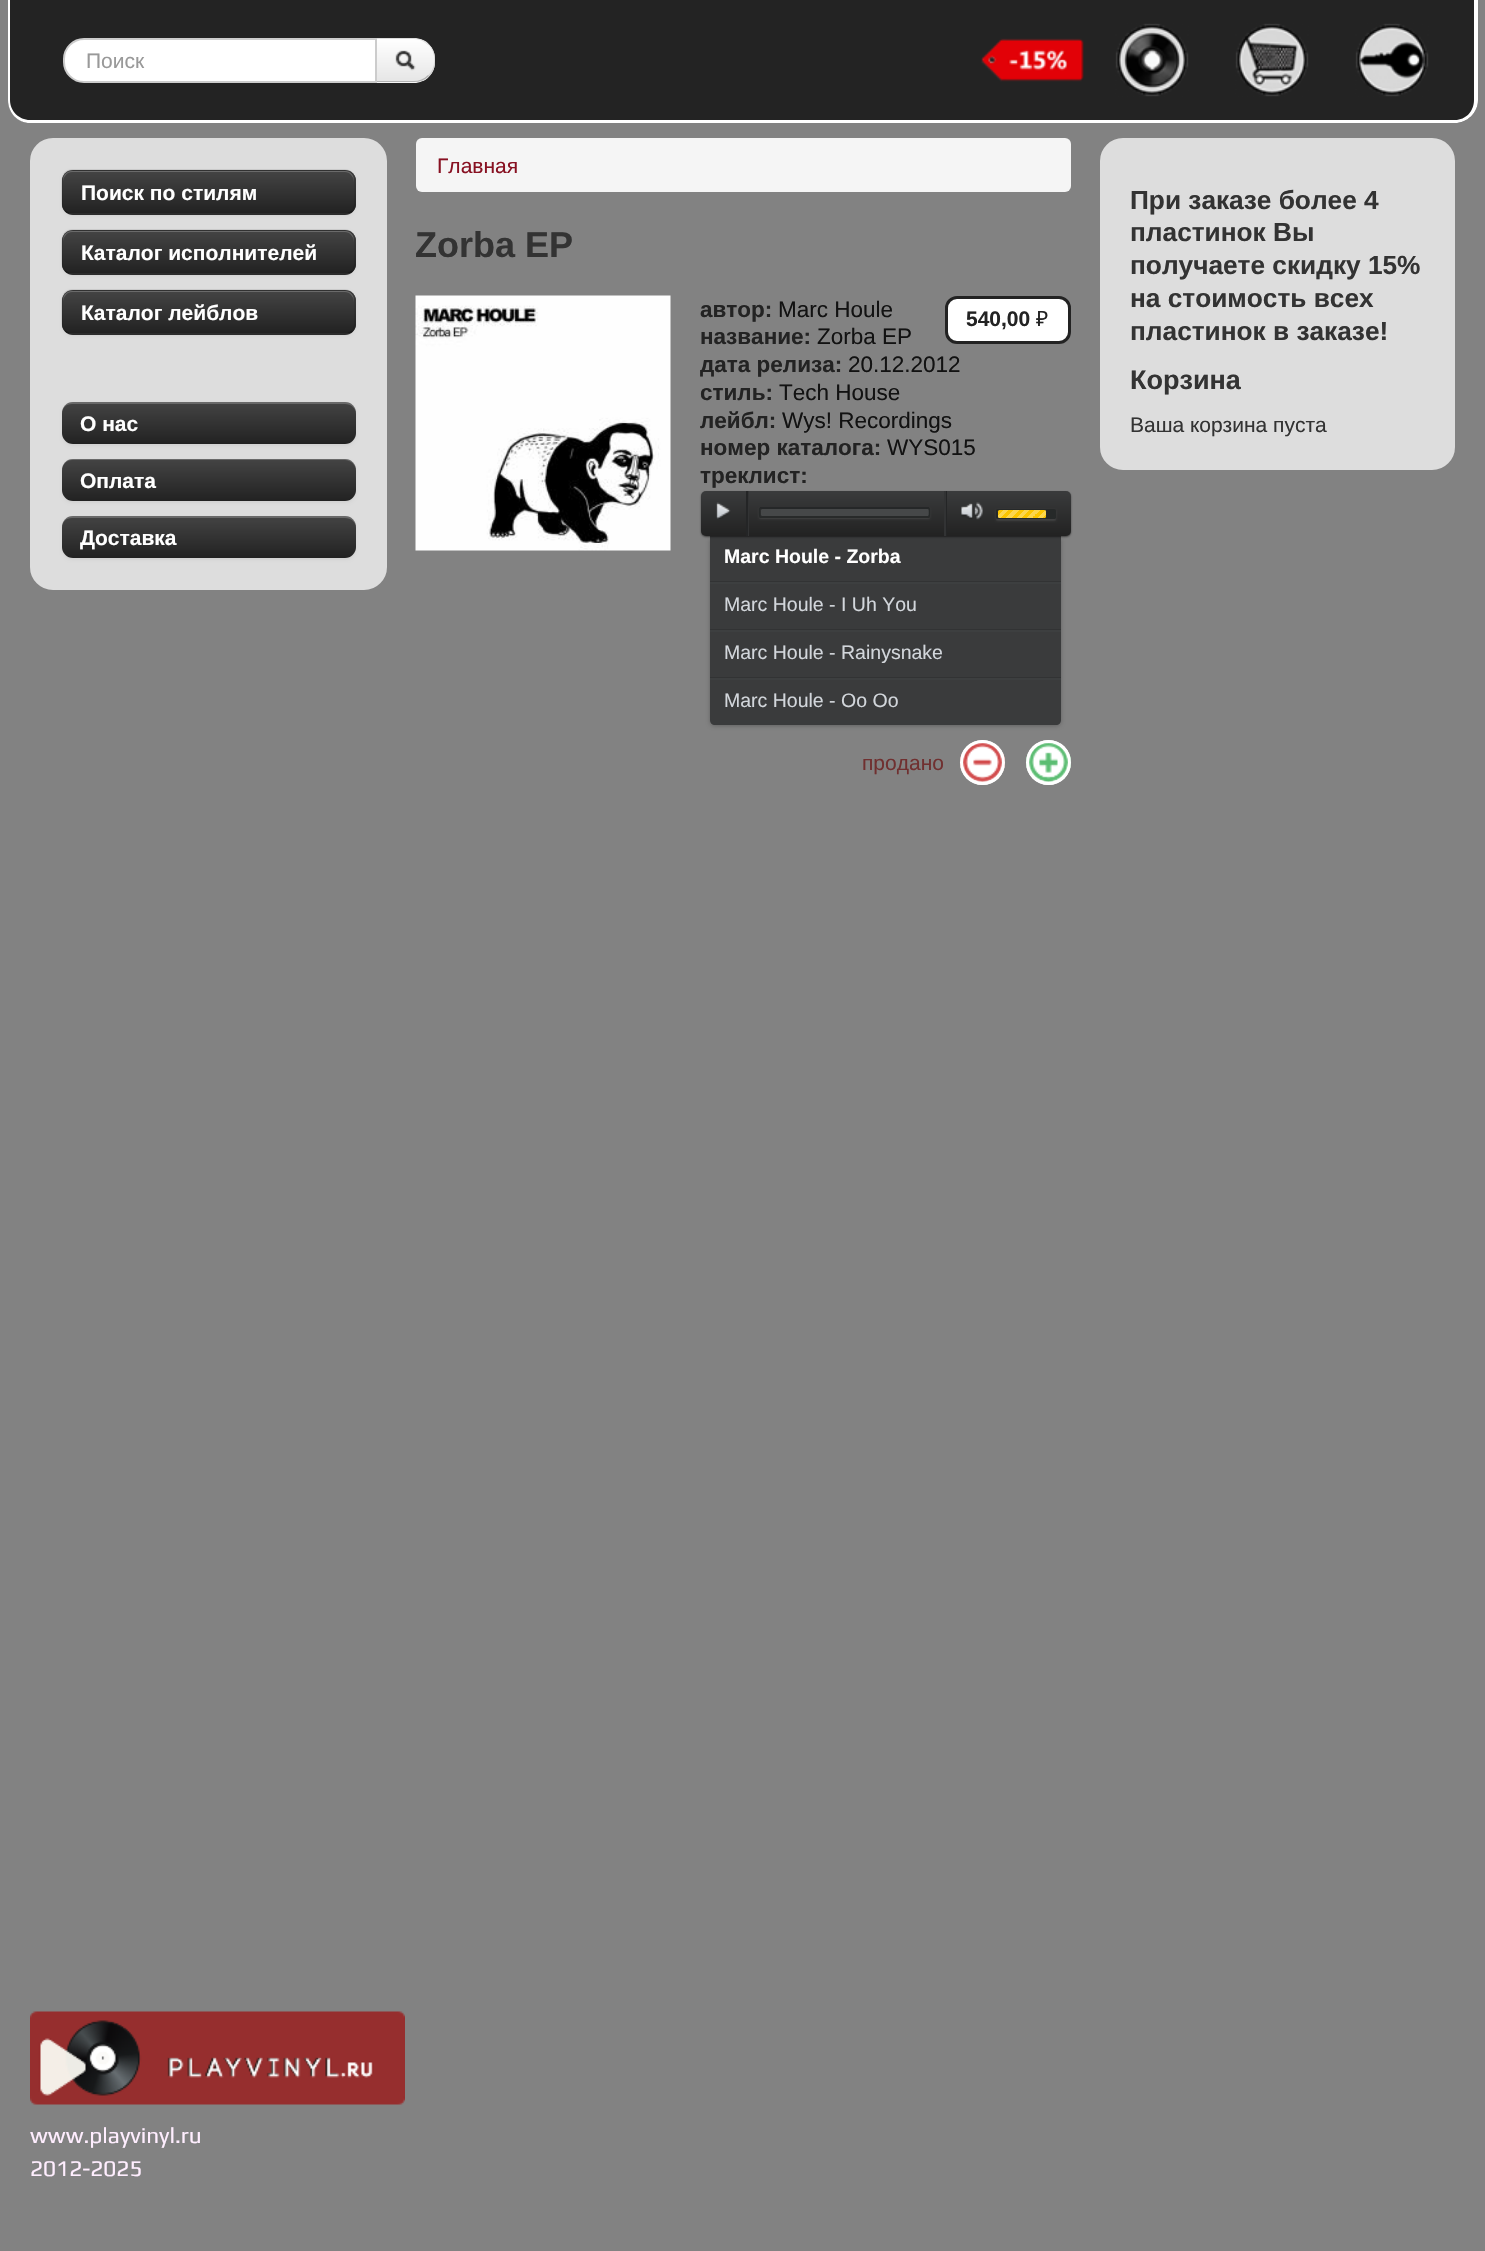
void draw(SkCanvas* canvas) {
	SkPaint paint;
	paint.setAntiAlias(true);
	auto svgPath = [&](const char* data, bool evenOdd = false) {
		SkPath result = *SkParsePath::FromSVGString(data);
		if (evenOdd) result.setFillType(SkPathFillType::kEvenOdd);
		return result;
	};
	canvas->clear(0xff828282);
	paint.setColor(0xff232323);
	canvas->drawPath(svgPath("M8 0H1478V100C1478 112.5 1467.5 123 1455 123H31C18.5 123 8 112.5 8 100Z"), paint);
	paint.setColor(0xffffffff);
	canvas->drawPath(svgPath("M8 0H1478V100C1478 113 1467 123 1455 123H30C18 123 8 113 8 100ZM10 0H1474V100C1474 111 1466 120 1455 120H30C19 120 10 111 10 100Z", true), paint);
	paint.setColor(0xfff5f5f5);
	canvas->drawPath(svgPath("M375 38H414C425.5 38 435 47.5 435 59V62C435 73.5 425.5 83 414 83H375Z"), paint);
	canvas->save();
	canvas->clipPath(svgPath("M375 38H414C425.5 38 435 47.5 435 59V62C435 73.5 425.5 83 414 83H375Z"), true);
	{
		const SkColor colors[] = {0xffffffff, 0xffe6e6e6};
		const float stops[] = {0, 1};
		const SkPoint ends[] = {{405, 39}, {405, 81}};
		paint.setShader(SkGradientShader::MakeLinear(ends, colors, stops, 2, SkTileMode::kClamp));
		paint.setAlpha(255);
	}
	canvas->drawRect(SkRect::MakeXYWH(377, 39, 58, 42), paint);
	canvas->restore();
	paint.setShader(nullptr);
	paint.setColor(0x1a000000);
	canvas->drawPath(svgPath("M429 44C425 40 420 38 414 38H376V39H414C419 39 424 41 428 45Z"), paint);
	canvas->drawPath(svgPath("M429 43.5C437.5 51.5 437.5 68.5 429 76.5L428 75.5C436.5 67.5 436.5 52.5 428 44.5Z"), paint);
	paint.setColor(0xffb3b3b3);
	canvas->drawPath(svgPath("M429 76C425 80 420 82 414 82H376V81H414C419 81 424 79 428 75Z"), paint);
	paint.setColor(0xffffffff);
	canvas->drawPath(svgPath("M84 39H376V82H84C73 82 64 73 64 62V59C64 48 73 39 84 39Z"), paint);
	paint.setStroke(true);
	paint.setStrokeWidth(2);
	paint.setColor(0xffcccccc);
	canvas->drawPath(svgPath("M84 39H376V82H84C73 82 64 73 64 62V59C64 48 73 39 84 39Z"), paint);
	SkFont f1(fontMgr->matchFamilyStyle("Liberation Sans", SkFontStyle::Normal()), 21);
	f1.setSubpixel(true);
	paint.setStroke(false);
	paint.setColor(0xff999999);
	canvas->drawString("Поиск", 86, 68, f1, paint);
	canvas->drawImageRect(SkImages::DeferredFromEncodedData(SkData::MakeFromFileName("img1.png")), SkRect::MakeXYWH(395, 50, 21, 21), SkSamplingOptions());
	canvas->drawImageRect(SkImages::DeferredFromEncodedData(SkData::MakeFromFileName("img2.png")), SkRect::MakeXYWH(981, 38, 103, 44), SkSamplingOptions());
	canvas->drawImageRect(SkImages::DeferredFromEncodedData(SkData::MakeFromFileName("img3.png")), SkRect::MakeXYWH(1115, 23, 74, 74), SkSamplingOptions());
	canvas->drawImageRect(SkImages::DeferredFromEncodedData(SkData::MakeFromFileName("img4.png")), SkRect::MakeXYWH(1235, 23, 74, 74), SkSamplingOptions());
	canvas->drawImageRect(SkImages::DeferredFromEncodedData(SkData::MakeFromFileName("img5.png")), SkRect::MakeXYWH(1355, 23, 74, 74), SkSamplingOptions());
	paint.setColor(0xfff5f5f5);
	canvas->drawRoundRect(SkRect::MakeXYWH(416, 138, 655, 54), 6, 6, paint);
	paint.setColor(0xff881122);
	canvas->drawString("Главная", 437, 173, f1, paint);
	SkFont f2(fontMgr->matchFamilyStyle("Liberation Sans", SkFontStyle::Bold()), 36);
	f2.setSubpixel(true);
	paint.setColor(0xff333333);
	canvas->drawString("Zorba EP", 415, 257, f2, paint);
	canvas->drawImageRect(SkImages::DeferredFromEncodedData(SkData::MakeFromFileName("img6.png")), SkRect::MakeXYWH(415, 295, 256, 256), SkSamplingOptions());
	SkFont f3(fontMgr->matchFamilyStyle("Liberation Sans", SkFontStyle::Bold()), 22.5);
	f3.setSubpixel(true);
	paint.setColor(0xff232323);
	canvas->drawString("автор:", 700, 317, f3, paint);
	SkFont f4(fontMgr->matchFamilyStyle("Liberation Sans", SkFontStyle::Normal()), 22.5);
	f4.setSubpixel(true);
	paint.setColor(0xff121212);
	canvas->drawString("Marc Houle", 778, 317, f4, paint);
	paint.setColor(0xffffffff);
	canvas->drawRoundRect(SkRect::MakeXYWH(946.5, 297.5, 123, 45), 10.5, 10.5, paint);
	paint.setStroke(true);
	paint.setStrokeWidth(3);
	paint.setColor(0xff232323);
	canvas->drawRoundRect(SkRect::MakeXYWH(946.5, 297.5, 123, 45), 10.5, 10.5, paint);
	SkFont f5(fontMgr->matchFamilyStyle("Liberation Sans", SkFontStyle::Bold()), 21);
	f5.setSubpixel(true);
	paint.setStroke(false);
	canvas->drawString("540,00", 966, 326, f5, paint);
	SkFont f6(fontMgr->matchFamilyStyle("Noto Sans", SkFontStyle::Normal()), 21);
	f6.setSubpixel(true);
	canvas->drawString("₽", 1036, 326, f6, paint);
	canvas->drawString("название:", 700, 344, f3, paint);
	paint.setColor(0xff121212);
	canvas->drawString("Zorba EP", 817, 344, f4, paint);
	paint.setColor(0xff232323);
	canvas->drawString("дата релиза:", 700, 372, f3, paint);
	paint.setColor(0xff121212);
	canvas->drawString("20.12.2012", 848, 372, f4, paint);
	paint.setColor(0xff232323);
	canvas->drawString("стиль:", 700, 400, f3, paint);
	paint.setColor(0xff121212);
	canvas->drawString("Tech House", 779, 400, f4, paint);
	paint.setColor(0xff232323);
	canvas->drawString("лейбл:", 700, 428, f3, paint);
	paint.setColor(0xff121212);
	canvas->drawString("Wys! Recordings", 782, 428, f4, paint);
	paint.setColor(0xff232323);
	canvas->drawString("номер каталога:", 700, 455, f3, paint);
	paint.setColor(0xff121212);
	canvas->drawString("WYS015", 887, 455, f4, paint);
	paint.setColor(0xff232323);
	canvas->drawString("треклист:", 700, 483, f3, paint);
	paint.setColor(0x40000000);
	paint.setMaskFilter(SkMaskFilter::MakeBlur(kNormal_SkBlurStyle, 2));
	canvas->drawRoundRect(SkRect::MakeXYWH(710, 537, 351, 189), 5, 5, paint);
	paint.setMaskFilter(nullptr);
	paint.setColor(0xff3a3b3c);
	canvas->drawPath(svgPath("M710 536H1061V720C1061 723 1059 725 1056 725H715C712 725 710 723 710 720Z"), paint);
	paint.setColor(0x80000000);
	paint.setMaskFilter(SkMaskFilter::MakeBlur(kNormal_SkBlurStyle, 1));
	canvas->drawRoundRect(SkRect::MakeXYWH(701, 492, 370, 45), 5, 5, paint);
	paint.setMaskFilter(nullptr);
	{
		const SkColor colors[] = {0xff3a3b3c, 0xff222222};
		const float stops[] = {0, 1};
		const SkPoint ends[] = {{886, 491}, {886, 536}};
		paint.setShader(SkGradientShader::MakeLinear(ends, colors, stops, 2, SkTileMode::kClamp));
		paint.setAlpha(255);
	}
	canvas->drawRoundRect(SkRect::MakeXYWH(701, 491, 370, 45), 5, 5, paint);
	canvas->drawImageRect(SkImages::DeferredFromEncodedData(SkData::MakeFromFileName("img7.png")), SkRect::MakeXYWH(716, 502, 15, 17), SkSamplingOptions());
	paint.setShader(nullptr);
	paint.setColor(0xff323334);
	canvas->drawRect(SkRect::MakeXYWH(748, 491, 1, 45), paint);
	paint.setColor(0xff242526);
	canvas->drawRect(SkRect::MakeXYWH(746, 491, 2, 45), paint);
	canvas->drawImageRect(SkImages::DeferredFromEncodedData(SkData::MakeFromFileName("img8.png")), SkRect::MakeXYWH(961, 502, 22, 18), SkSamplingOptions());
	paint.setColor(0x1affffff);
	paint.setMaskFilter(SkMaskFilter::MakeBlur(kNormal_SkBlurStyle, 1));
	canvas->drawRoundRect(SkRect::MakeXYWH(996, 510, 60, 11), 1.5, 1.5, paint);
	paint.setMaskFilter(nullptr);
	paint.setColor(0xff262929);
	canvas->drawRoundRect(SkRect::MakeXYWH(996, 509, 60, 10), 1.5, 1.5, paint);
	paint.setColor(0xff242526);
	canvas->drawRect(SkRect::MakeXYWH(946, 491, 1, 45), paint);
	paint.setColor(0xff323334);
	canvas->drawRect(SkRect::MakeXYWH(944, 491, 2, 45), paint);
	paint.setColor(0xfffcc500);
	canvas->drawRoundRect(SkRect::MakeXYWH(998, 510, 48, 8), 1.5, 1.5, paint);
	{
		const SkColor colors[] = {0x4dffffff, 0x00ffffff, 0x00ffffff, 0x4dffffff, 0x4dffffff, 0x00ffffff, 0x00000000};
		const float stops[] = {0.25, 0.25, 0.5, 0.5, 0.75, 0.75, 1};
		const SkPoint ends[] = {{1008, 521}, {998, 510}};
		paint.setShader(SkGradientShader::MakeLinear(ends, colors, stops, 7, SkTileMode::kClamp));
		paint.setAlpha(255);
	}
	canvas->drawPath(svgPath("M999.5 510H1008V518H999.5C998.5 518 998 517.5 998 516.5V511.5C998 510.5 998.5 510 999.5 510Z"), paint);
	{
		const SkColor colors[] = {0xfffdd64d, 0xfffcc500, 0xfffcc500, 0xfffdd64d, 0xfffdd64d, 0xfffcc500, 0xfffcc500};
		const float stops[] = {0.25, 0.25, 0.5, 0.5, 0.75, 0.75, 1};
		const SkPoint ends[] = {{1019, 521}, {1008, 510}};
		paint.setShader(SkGradientShader::MakeLinear(ends, colors, stops, 7, SkTileMode::kClamp));
		paint.setAlpha(255);
	}
	canvas->drawRect(SkRect::MakeXYWH(1008, 510, 11, 8), paint);
	{
		const SkColor colors[] = {0xfffdd64d, 0xfffcc500, 0xfffcc500, 0xfffdd64d, 0xfffdd64d, 0xfffcc500, 0xfffcc500};
		const float stops[] = {0.25, 0.25, 0.5, 0.5, 0.75, 0.75, 1};
		const SkPoint ends[] = {{1029, 521}, {1019, 510}};
		paint.setShader(SkGradientShader::MakeLinear(ends, colors, stops, 7, SkTileMode::kClamp));
		paint.setAlpha(255);
	}
	canvas->drawRect(SkRect::MakeXYWH(1019, 510, 10, 8), paint);
	{
		const SkColor colors[] = {0xfffdd64d, 0xfffcc500, 0xfffcc500, 0xfffdd64d, 0xfffdd64d, 0xfffcc500, 0xfffcc500};
		const float stops[] = {0.25, 0.25, 0.5, 0.5, 0.75, 0.75, 1};
		const SkPoint ends[] = {{1040, 521}, {1029, 510}};
		paint.setShader(SkGradientShader::MakeLinear(ends, colors, stops, 7, SkTileMode::kClamp));
		paint.setAlpha(255);
	}
	canvas->drawRect(SkRect::MakeXYWH(1029, 510, 11, 8), paint);
	{
		const SkColor colors[] = {0x4dffffff, 0x00ffffff, 0x00ffffff, 0x4dffffff, 0x4dffffff, 0x00ffffff, 0x00000000};
		const float stops[] = {0.25, 0.25, 0.5, 0.5, 0.75, 0.75, 1};
		const SkPoint ends[] = {{1050, 521}, {1040, 510}};
		paint.setShader(SkGradientShader::MakeLinear(ends, colors, stops, 7, SkTileMode::kClamp));
		paint.setAlpha(255);
	}
	canvas->drawPath(svgPath("M1040 510H1044.5C1045.5 510 1046 510.5 1046 511.5V516.5C1046 517.5 1045.5 518 1044.5 518H1040Z"), paint);
	paint.setShader(nullptr);
	paint.setColor(0xff464849);
	canvas->drawRoundRect(SkRect::MakeXYWH(761, 509, 168, 7), 1.5, 1.5, paint);
	canvas->save();
	canvas->clipPath(svgPath("M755 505H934V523H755ZM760.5 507H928.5C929.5 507 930 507.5 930 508.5V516.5C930 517.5 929.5 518 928.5 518H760.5C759.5 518 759 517.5 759 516.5V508.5C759 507.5 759.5 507 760.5 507Z", true), true);
	paint.setColor(0x1affffff);
	paint.setMaskFilter(SkMaskFilter::MakeBlur(kNormal_SkBlurStyle, 1));
	canvas->drawRoundRect(SkRect::MakeXYWH(759, 509, 171, 10), 1.5, 1.5, paint);
	paint.setMaskFilter(nullptr);
	canvas->restore();
	paint.setColor(0xff252728);
	canvas->drawRect(SkRect::MakeXYWH(760, 507, 169, 2), paint);
	paint.setStroke(true);
	paint.setStrokeWidth(1.5);
	paint.setColor(0xff262929);
	canvas->drawPath(svgPath("M929 508C929.5 508.5 930 516.5 928.5 517H760.5C759 516.5 759.5 508.5 760 508"), paint);
	paint.setStroke(false);
	paint.setColor(0xff323334);
	canvas->drawRect(SkRect::MakeXYWH(710, 581, 351, 1), paint);
	SkFont f7(fontMgr->matchFamilyStyle("Liberation Sans", SkFontStyle::Bold()), 19.5);
	f7.setSubpixel(true);
	paint.setColor(0xffffffff);
	canvas->drawString("Marc Houle - Zorba", 724, 563, f7, paint);
	paint.setColor(0xff3d3f40);
	canvas->drawRect(SkRect::MakeXYWH(710, 582, 351, 2), paint);
	paint.setColor(0xff323334);
	canvas->drawRect(SkRect::MakeXYWH(710, 629, 351, 1), paint);
	SkFont f8(fontMgr->matchFamilyStyle("Liberation Sans", SkFontStyle::Normal()), 19.5);
	f8.setSubpixel(true);
	paint.setColor(0xffd2d6db);
	canvas->drawString("Marc Houle - I Uh You", 724, 611, f8, paint);
	paint.setColor(0xff3d3f40);
	canvas->drawRect(SkRect::MakeXYWH(710, 630, 351, 2), paint);
	paint.setColor(0xff323334);
	canvas->drawRect(SkRect::MakeXYWH(710, 677, 351, 1), paint);
	paint.setColor(0xffd2d6db);
	canvas->drawString("Marc Houle - Rainysnake", 724, 659, f8, paint);
	paint.setColor(0xff3d3f40);
	canvas->drawRect(SkRect::MakeXYWH(710, 678, 351, 2), paint);
	paint.setColor(0xffd2d6db);
	canvas->drawString("Marc Houle - Oo Oo", 724, 707, f8, paint);
	paint.setColor(0xff703030);
	canvas->drawString("продано", 862, 770, f1, paint);
	paint.setColor(0xffffffff);
	canvas->drawCircle(982.5, 762.5, 22.5, paint);
	canvas->drawImageRect(SkImages::DeferredFromEncodedData(SkData::MakeFromFileName("img9.png")), SkRect::MakeXYWH(960, 743, 45, 39), SkSamplingOptions());
	paint.setColor(0x33ffffff);
	canvas->drawPath(svgPath("M982 744C998 744 1004 759 1000 770C1009 749 980 732 966 752C963 756 962 762 964 767C962 756 968 744 982 744Z"), paint);
	paint.setStroke(true);
	paint.setStrokeWidth(3);
	paint.setColor(0xffffffff);
	canvas->drawCircle(982.5, 762.5, 21, paint);
	paint.setStroke(false);
	canvas->drawCircle(1048.5, 762.5, 22.5, paint);
	canvas->drawImageRect(SkImages::DeferredFromEncodedData(SkData::MakeFromFileName("img10.png")), SkRect::MakeXYWH(1026, 743, 45, 39), SkSamplingOptions());
	paint.setColor(0x33ffffff);
	canvas->drawPath(svgPath("M1048 744C1064 744 1070 759 1066 770C1075 749 1046 732 1032 752C1029 756 1028 762 1030 767C1028 756 1034 744 1048 744Z"), paint);
	paint.setStroke(true);
	paint.setColor(0xffffffff);
	canvas->drawCircle(1048.5, 762.5, 21, paint);
	paint.setStroke(false);
	paint.setColor(0xffdddddd);
	canvas->drawRoundRect(SkRect::MakeXYWH(31, 139, 355, 450), 22, 22, paint);
	paint.setStroke(true);
	paint.setStrokeWidth(2);
	canvas->drawRoundRect(SkRect::MakeXYWH(31, 139, 355, 450), 22, 22, paint);
	paint.setStroke(false);
	paint.setColor(0x0d000000);
	paint.setMaskFilter(SkMaskFilter::MakeBlur(kNormal_SkBlurStyle, 1.5));
	canvas->drawRoundRect(SkRect::MakeXYWH(62, 171, 294, 45), 11, 11, paint);
	paint.setMaskFilter(nullptr);
	paint.setColor(0xff363636);
	canvas->drawRoundRect(SkRect::MakeXYWH(62, 170, 294, 45), 11, 11, paint);
	canvas->save();
	canvas->clipPath(svgPath("M73 170H345C351 170 356 175 356 181V204C356 210 351 215 345 215H73C67 215 62 210 62 204V181C62 175 67 170 73 170Z"), true);
	{
		const SkColor colors[] = {0xff444444, 0xff222222};
		const float stops[] = {0, 1};
		const SkPoint ends[] = {{209, 171}, {209, 213}};
		paint.setShader(SkGradientShader::MakeLinear(ends, colors, stops, 2, SkTileMode::kClamp));
		paint.setAlpha(255);
	}
	canvas->drawRect(SkRect::MakeXYWH(62, 171, 294, 42), paint);
	canvas->restore();
	paint.setShader(nullptr);
	paint.setColor(0x33ffffff);
	canvas->drawPath(svgPath("M72 172H345C350 172 354 177 354 182V180C354 175 350 171 345 171H72C67 171 63 175 63 180V182C63 177 67 172 72 172Z"), paint);
	paint.setStroke(true);
	paint.setStrokeWidth(1.5);
	paint.setColor(0x40000000);
	canvas->drawPath(svgPath("M352 211C350 212.5 347.5 214 345 214H72C69.5 214 67 212.5 65 211"), paint);
	paint.setColor(0x1a000000);
	canvas->drawPath(svgPath("M65 211C62 208 62 204 62 200V188C62 180.5 61.5 170.5 72 170H345C355.5 170.5 355 180.5 355 188V200C355 204 355 208 352 211"), paint);
	paint.setStroke(false);
	paint.setColor(0xffffffff);
	canvas->drawString("Поиск по стилям", 81, 200, f5, paint);
	paint.setColor(0x0d000000);
	paint.setMaskFilter(SkMaskFilter::MakeBlur(kNormal_SkBlurStyle, 1.5));
	canvas->drawRoundRect(SkRect::MakeXYWH(62, 231, 294, 45), 11, 11, paint);
	paint.setMaskFilter(nullptr);
	paint.setColor(0xff363636);
	canvas->drawRoundRect(SkRect::MakeXYWH(62, 230, 294, 45), 11, 11, paint);
	canvas->save();
	canvas->clipPath(svgPath("M73 230H345C351 230 356 235 356 241V264C356 270 351 275 345 275H73C67 275 62 270 62 264V241C62 235 67 230 73 230Z"), true);
	{
		const SkColor colors[] = {0xff444444, 0xff222222};
		const float stops[] = {0, 1};
		const SkPoint ends[] = {{209, 231}, {209, 273}};
		paint.setShader(SkGradientShader::MakeLinear(ends, colors, stops, 2, SkTileMode::kClamp));
		paint.setAlpha(255);
	}
	canvas->drawRect(SkRect::MakeXYWH(62, 231, 294, 42), paint);
	canvas->restore();
	paint.setShader(nullptr);
	paint.setColor(0x33ffffff);
	canvas->drawPath(svgPath("M72 232H345C350 232 354 237 354 242V240C354 235 350 231 345 231H72C67 231 63 235 63 240V242C63 237 67 232 72 232Z"), paint);
	paint.setStroke(true);
	paint.setColor(0x40000000);
	canvas->drawPath(svgPath("M352 271C350 272.5 347.5 274 345 274H72C69.5 274 67 272.5 65 271"), paint);
	paint.setColor(0x1a000000);
	canvas->drawPath(svgPath("M65 271C62 268 62 264 62 260V248C62 240.5 61.5 230.5 72 230H345C355.5 230.5 355 240.5 355 248V260C355 264 355 268 352 271"), paint);
	paint.setStroke(false);
	paint.setColor(0xffffffff);
	canvas->drawString("Каталог исполнителей", 81, 260, f5, paint);
	paint.setColor(0x0d000000);
	paint.setMaskFilter(SkMaskFilter::MakeBlur(kNormal_SkBlurStyle, 1.5));
	canvas->drawRoundRect(SkRect::MakeXYWH(62, 291, 294, 45), 11, 11, paint);
	paint.setMaskFilter(nullptr);
	paint.setColor(0xff363636);
	canvas->drawRoundRect(SkRect::MakeXYWH(62, 290, 294, 45), 11, 11, paint);
	canvas->save();
	canvas->clipPath(svgPath("M73 290H345C351 290 356 295 356 301V324C356 330 351 335 345 335H73C67 335 62 330 62 324V301C62 295 67 290 73 290Z"), true);
	{
		const SkColor colors[] = {0xff444444, 0xff222222};
		const float stops[] = {0, 1};
		const SkPoint ends[] = {{209, 291}, {209, 333}};
		paint.setShader(SkGradientShader::MakeLinear(ends, colors, stops, 2, SkTileMode::kClamp));
		paint.setAlpha(255);
	}
	canvas->drawRect(SkRect::MakeXYWH(62, 291, 294, 42), paint);
	canvas->restore();
	paint.setShader(nullptr);
	paint.setColor(0x33ffffff);
	canvas->drawPath(svgPath("M72 292H345C350 292 354 297 354 302V300C354 295 350 291 345 291H72C67 291 63 295 63 300V302C63 297 67 292 72 292Z"), paint);
	paint.setStroke(true);
	paint.setColor(0x40000000);
	canvas->drawPath(svgPath("M352 331C350 332.5 347.5 334 345 334H72C69.5 334 67 332.5 65 331"), paint);
	paint.setColor(0x1a000000);
	canvas->drawPath(svgPath("M65 331C62 328 62 324 62 320V308C62 300.5 61.5 290.5 72 290H345C355.5 290.5 355 300.5 355 308V320C355 324 355 328 352 331"), paint);
	paint.setStroke(false);
	paint.setColor(0xffffffff);
	canvas->drawString("Каталог лейблов", 81, 320, f5, paint);
	paint.setColor(0x0d000000);
	paint.setMaskFilter(SkMaskFilter::MakeBlur(kNormal_SkBlurStyle, 1.5));
	canvas->drawRoundRect(SkRect::MakeXYWH(62, 404, 294, 42), 11, 11, paint);
	paint.setMaskFilter(nullptr);
	{
		const SkColor colors[] = {0xff444444, 0xff222222};
		const float stops[] = {0, 1};
		const SkPoint ends[] = {{209, 402}, {209, 444}};
		paint.setShader(SkGradientShader::MakeLinear(ends, colors, stops, 2, SkTileMode::kClamp));
		paint.setAlpha(255);
	}
	canvas->drawRoundRect(SkRect::MakeXYWH(62, 402, 294, 42), 11, 11, paint);
	paint.setShader(nullptr);
	paint.setColor(0x33ffffff);
	canvas->drawPath(svgPath("M72 404H345C351 404 356 408 356 414V413C356 407 351 402 345 402H73C67 402 62 407 62 413V414C62 408 66 404 72 404Z"), paint);
	paint.setColor(0xffffffff);
	canvas->drawString("О нас", 80, 431, f5, paint);
	paint.setColor(0x0d000000);
	paint.setMaskFilter(SkMaskFilter::MakeBlur(kNormal_SkBlurStyle, 1.5));
	canvas->drawRoundRect(SkRect::MakeXYWH(62, 461, 294, 42), 11, 11, paint);
	paint.setMaskFilter(nullptr);
	{
		const SkColor colors[] = {0xff444444, 0xff222222};
		const float stops[] = {0, 1};
		const SkPoint ends[] = {{209, 459}, {209, 501}};
		paint.setShader(SkGradientShader::MakeLinear(ends, colors, stops, 2, SkTileMode::kClamp));
		paint.setAlpha(255);
	}
	canvas->drawRoundRect(SkRect::MakeXYWH(62, 459, 294, 42), 11, 11, paint);
	paint.setShader(nullptr);
	paint.setColor(0x33ffffff);
	canvas->drawPath(svgPath("M72 460H345C351 460 356 465 356 471V470C356 464 351 459 345 459H73C67 459 62 464 62 470V471C62 465 66 460 72 460Z"), paint);
	paint.setColor(0xffffffff);
	canvas->drawString("Оплата", 80, 488, f5, paint);
	paint.setColor(0x0d000000);
	paint.setMaskFilter(SkMaskFilter::MakeBlur(kNormal_SkBlurStyle, 1.5));
	canvas->drawRoundRect(SkRect::MakeXYWH(62, 518, 294, 42), 11, 11, paint);
	paint.setMaskFilter(nullptr);
	{
		const SkColor colors[] = {0xff444444, 0xff222222};
		const float stops[] = {0, 1};
		const SkPoint ends[] = {{209, 516}, {209, 558}};
		paint.setShader(SkGradientShader::MakeLinear(ends, colors, stops, 2, SkTileMode::kClamp));
		paint.setAlpha(255);
	}
	canvas->drawRoundRect(SkRect::MakeXYWH(62, 516, 294, 42), 11, 11, paint);
	paint.setShader(nullptr);
	paint.setColor(0x33ffffff);
	canvas->drawPath(svgPath("M72 518H345C351 518 356 522 356 528V527C356 521 351 516 345 516H73C67 516 62 521 62 527V528C62 522 66 518 72 518Z"), paint);
	paint.setColor(0xffffffff);
	canvas->drawString("Доставка", 80, 545, f5, paint);
	paint.setColor(0xffdddddd);
	canvas->drawRoundRect(SkRect::MakeXYWH(1101, 139, 353, 330), 22, 22, paint);
	paint.setStroke(true);
	paint.setStrokeWidth(2);
	canvas->drawRoundRect(SkRect::MakeXYWH(1101, 139, 353, 330), 22, 22, paint);
	SkFont f9(fontMgr->matchFamilyStyle("Liberation Sans", SkFontStyle::Bold()), 26.25);
	f9.setSubpixel(true);
	paint.setStroke(false);
	paint.setColor(0xff333333);
	canvas->drawString("При заказе более 4", 1130, 209, f9, paint);
	canvas->drawString("пластинок Вы", 1130, 241, f9, paint);
	canvas->drawString("получаете скидку 15%", 1130, 274, f9, paint);
	canvas->drawString("на стоимость всех", 1130, 307, f9, paint);
	canvas->drawString("пластинок в заказе!", 1130, 340, f9, paint);
	SkFont f10(fontMgr->matchFamilyStyle("Liberation Sans", SkFontStyle::Bold()), 27);
	f10.setSubpixel(true);
	canvas->drawString("Корзина", 1130, 389, f10, paint);
	canvas->drawString("Ваша корзина пуста", 1130, 432, f1, paint);
	canvas->drawImageRect(SkImages::DeferredFromEncodedData(SkData::MakeFromFileName("img11.png")), SkRect::MakeXYWH(30, 2011, 375, 94), SkSamplingOptions());
	SkFont f11(fontMgr->matchFamilyStyle("Play", SkFontStyle::Normal()), 22.5);
	f11.setSubpixel(true);
	paint.setColor(0xffffeeff);
	canvas->drawString("www.playvinyl.ru", 30, 2143, f11, paint);
	canvas->drawString("2012-2025", 30, 2176, f11, paint);
}
